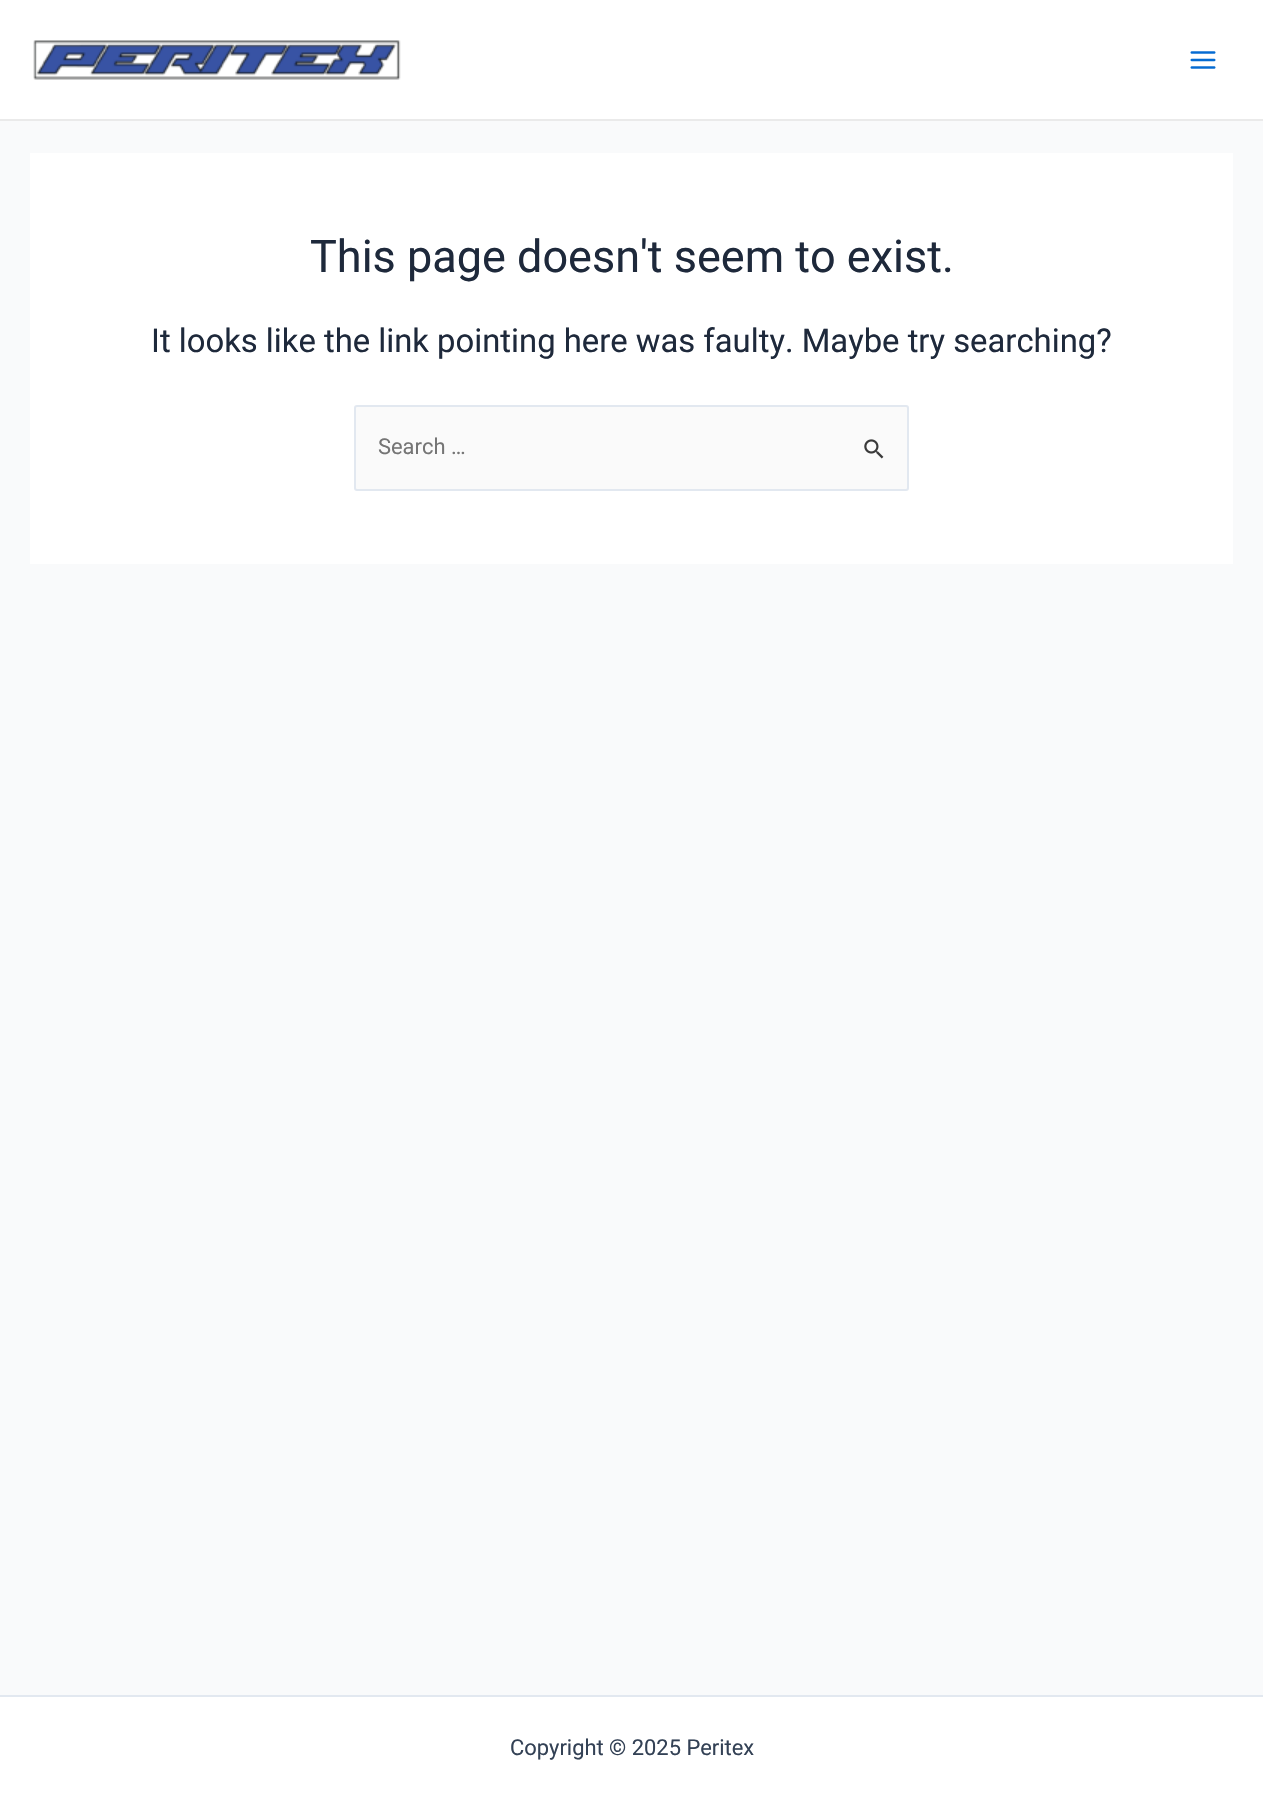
void draw(SkCanvas* canvas) {
	SkPaint paint;
	paint.setAntiAlias(true);
	canvas->clear(0xfff9fafb);
	paint.setColor(0xffffffff);
	canvas->drawRect(SkRect::MakeXYWH(0, 0, 1263, 119), paint);
	paint.setColor(0xffeaeaea);
	canvas->drawRect(SkRect::MakeXYWH(0, 119, 1263, 2), paint);
	canvas->drawImageRect(SkImages::DeferredFromEncodedData(SkData::MakeFromFileName("img1.png")), SkRect::MakeXYWH(33, 40, 368, 40), SkSamplingOptions());
	canvas->drawImageRect(SkImages::DeferredFromEncodedData(SkData::MakeFromFileName("img2.png")), SkRect::MakeXYWH(1190, 51, 26, 18), SkSamplingOptions());
	paint.setColor(0xffffffff);
	canvas->drawRect(SkRect::MakeXYWH(30, 153, 1203, 411), paint);
	SkFont f1(fontMgr->matchFamilyStyle("Roboto", SkFontStyle::Normal()), 45);
	f1.setSubpixel(true);
	paint.setColor(0xff1e293b);
	canvas->drawString("This page doesn't seem to exist.", 310, 272, f1, paint);
	SkFont f2(fontMgr->matchFamilyStyle("Roboto", SkFontStyle::Normal()), 32.8);
	f2.setSubpixel(true);
	canvas->drawString("It looks like the link pointing here was faulty. Maybe try searching?", 151, 352, f2, paint);
	paint.setColor(0xfffafafa);
	canvas->drawRoundRect(SkRect::MakeXYWH(355, 406, 553, 84), 2, 2, paint);
	paint.setStroke(true);
	paint.setStrokeWidth(2);
	paint.setColor(0xffe2e8f0);
	canvas->drawRoundRect(SkRect::MakeXYWH(355, 406, 553, 84), 2, 2, paint);
	SkFont f3(fontMgr->matchFamilyStyle("Roboto", SkFontStyle::Normal()), 21.9);
	f3.setSubpixel(true);
	paint.setStroke(false);
	paint.setColor(0xff757575);
	canvas->drawString("Search …", 378, 454, f3, paint);
	canvas->drawImageRect(SkImages::DeferredFromEncodedData(SkData::MakeFromFileName("img3.png")), SkRect::MakeXYWH(864, 439, 20, 20), SkSamplingOptions());
	paint.setColor(0xffffffff);
	canvas->drawRect(SkRect::MakeXYWH(0, 1697, 1263, 118), paint);
	paint.setColor(0xffe2e8f0);
	canvas->drawRect(SkRect::MakeXYWH(0, 1695, 1263, 2), paint);
	paint.setColor(0xff334155);
	canvas->drawString("Copyright © 2025 Peritex", 510, 1755, f3, paint);
}
